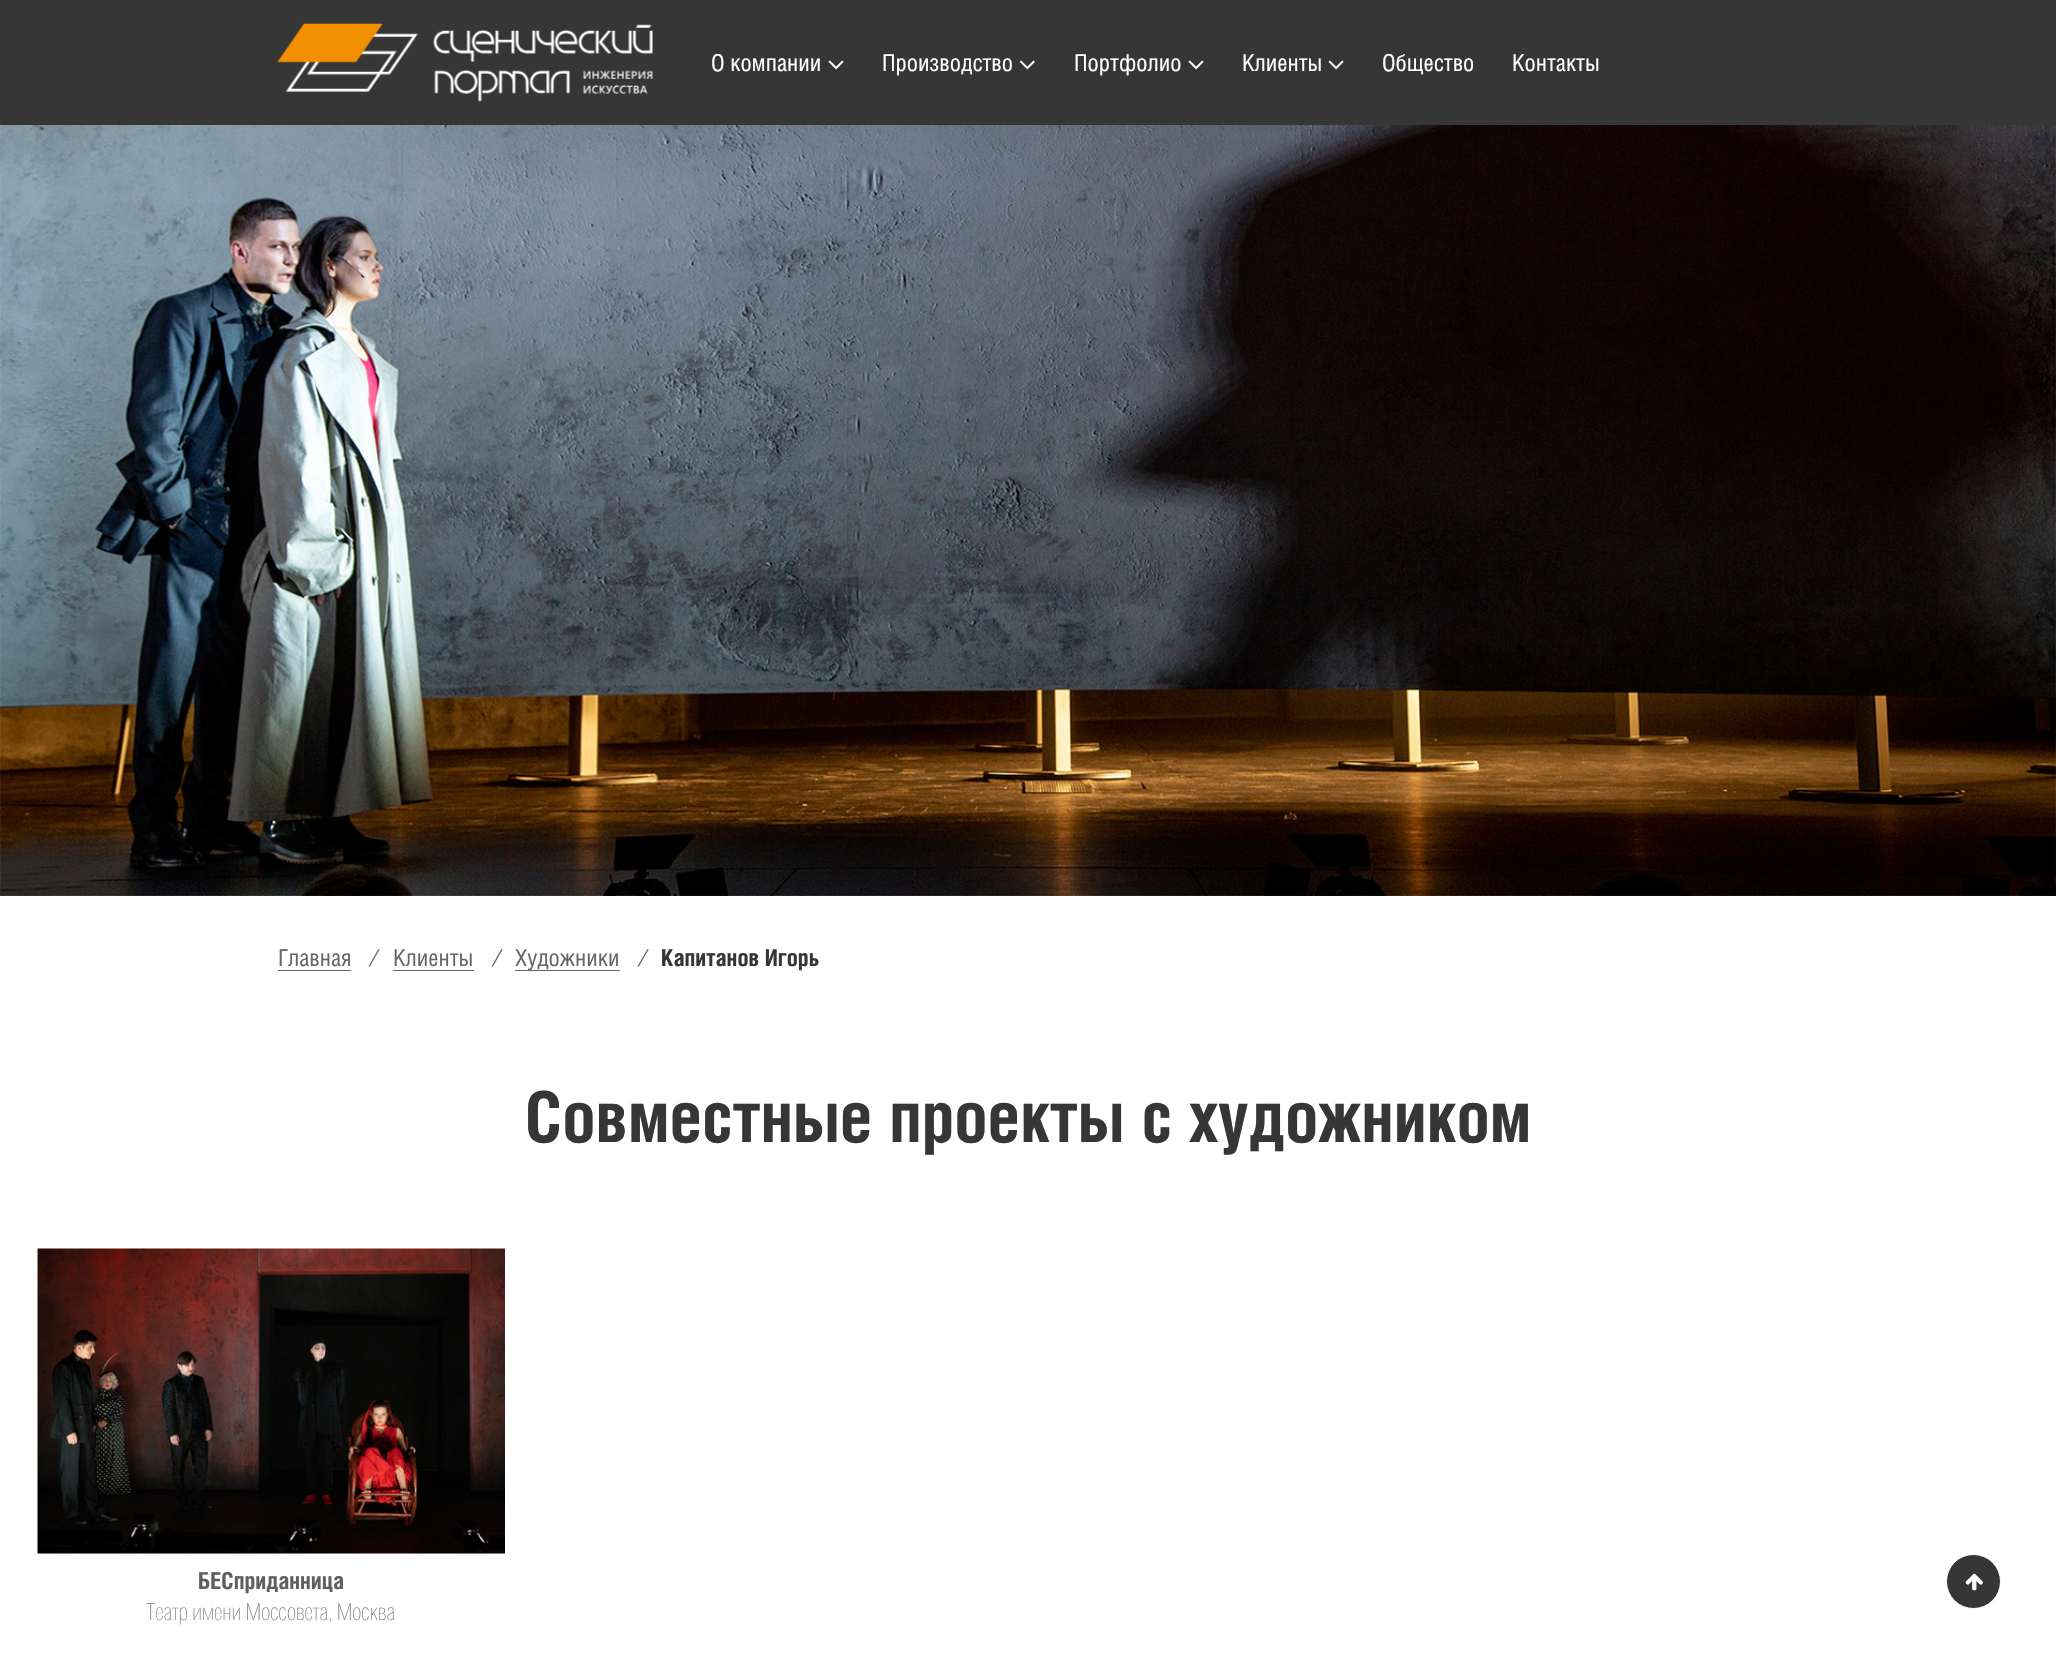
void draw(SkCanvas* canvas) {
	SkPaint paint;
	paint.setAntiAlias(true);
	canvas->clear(0xffffffff);
	paint.setColor(0xff373636);
	canvas->drawRect(SkRect::MakeXYWH(0, 0, 2056, 125), paint);
	canvas->drawImageRect(SkImages::DeferredFromEncodedData(SkData::MakeFromFileName("img1.png")), SkRect::MakeXYWH(277, 23, 376, 79), SkSamplingOptions());
	SkFont f1(fontMgr->matchFamilyStyle("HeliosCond", SkFontStyle::Normal()), 23.25);
	f1.setSubpixel(true);
	paint.setColor(0xffffffff);
	canvas->drawString("О компании", 711, 71, f1, paint);
	canvas->drawImageRect(SkImages::DeferredFromEncodedData(SkData::MakeFromFileName("img2.png")), SkRect::MakeXYWH(828, 60, 16, 10), SkSamplingOptions());
	canvas->drawString("Производство", 882, 71, f1, paint);
	canvas->drawImageRect(SkImages::DeferredFromEncodedData(SkData::MakeFromFileName("img3.png")), SkRect::MakeXYWH(1019, 60, 16, 10), SkSamplingOptions());
	canvas->drawString("Портфолио", 1074, 71, f1, paint);
	canvas->drawImageRect(SkImages::DeferredFromEncodedData(SkData::MakeFromFileName("img2.png")), SkRect::MakeXYWH(1188, 60, 16, 10), SkSamplingOptions());
	canvas->drawString("Клиенты", 1242, 71, f1, paint);
	canvas->drawImageRect(SkImages::DeferredFromEncodedData(SkData::MakeFromFileName("img2.png")), SkRect::MakeXYWH(1328, 60, 16, 10), SkSamplingOptions());
	canvas->drawString("Общество", 1382, 71, f1, paint);
	canvas->drawString("Контакты", 1512, 71, f1, paint);
	canvas->drawImageRect(SkImages::DeferredFromEncodedData(SkData::MakeFromFileName("img4.png")), SkRect::MakeXYWH(0, 125, 2056, 771), SkSamplingOptions());
	paint.setColor(0xff666666);
	canvas->drawString("Главная", 278, 966, f1, paint);
	canvas->drawRect(SkRect::MakeXYWH(278, 970, 73, 1), paint);
	SkFont f2(fontMgr->matchFamilyStyle("HeliosCond", SkFontStyle::Italic()), 23.25);
	f2.setSubpixel(true);
	canvas->drawString("/", 369, 966, f2, paint);
	canvas->drawString("Клиенты", 393, 966, f1, paint);
	canvas->drawRect(SkRect::MakeXYWH(393, 970, 81, 1), paint);
	canvas->drawString("/", 492, 966, f2, paint);
	canvas->drawRect(SkRect::MakeXYWH(515, 970, 105, 1), paint);
	canvas->drawString("Художники", 515, 966, f1, paint);
	canvas->drawString("/", 638, 966, f2, paint);
	SkFont f3(fontMgr->matchFamilyStyle("HeliosCond", SkFontStyle::Bold()), 23.25);
	f3.setSubpixel(true);
	paint.setColor(0xff373636);
	canvas->drawString("Капитанов Игорь", 661, 966, f3, paint);
	SkFont f4(fontMgr->matchFamilyStyle("HeliosCond", SkFontStyle::Bold()), 70);
	f4.setSubpixel(true);
	canvas->drawString("Совместные проекты с художником", 525, 1142, f4, paint);
	canvas->drawImageRect(SkImages::DeferredFromEncodedData(SkData::MakeFromFileName("img5.png")), SkRect::MakeXYWH(37, 1248, 468, 306), SkSamplingOptions());
	paint.setColor(0xff5f5f5f);
	canvas->drawString("БЕСприданница", 198, 1589, f3, paint);
	SkFont f5(fontMgr->matchFamilyStyle("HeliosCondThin", SkFontStyle(100, SkFontStyle::kNormal_Width, SkFontStyle::kUpright_Slant)), 23.25);
	f5.setSubpixel(true);
	paint.setColor(0xff848484);
	canvas->drawString("Театр имени Моссовета, Москва", 146, 1620, f5, paint);
	paint.setColor(0xff373636);
	canvas->drawCircle(1973.5, 1581.5, 27, paint);
	paint.setStroke(true);
	paint.setStrokeWidth(1);
	paint.setColor(0xffffffff);
	canvas->drawCircle(1973.5, 1581.5, 27, paint);
	canvas->drawImageRect(SkImages::DeferredFromEncodedData(SkData::MakeFromFileName("img6.png")), SkRect::MakeXYWH(1965, 1573, 18, 18), SkSamplingOptions());
}
